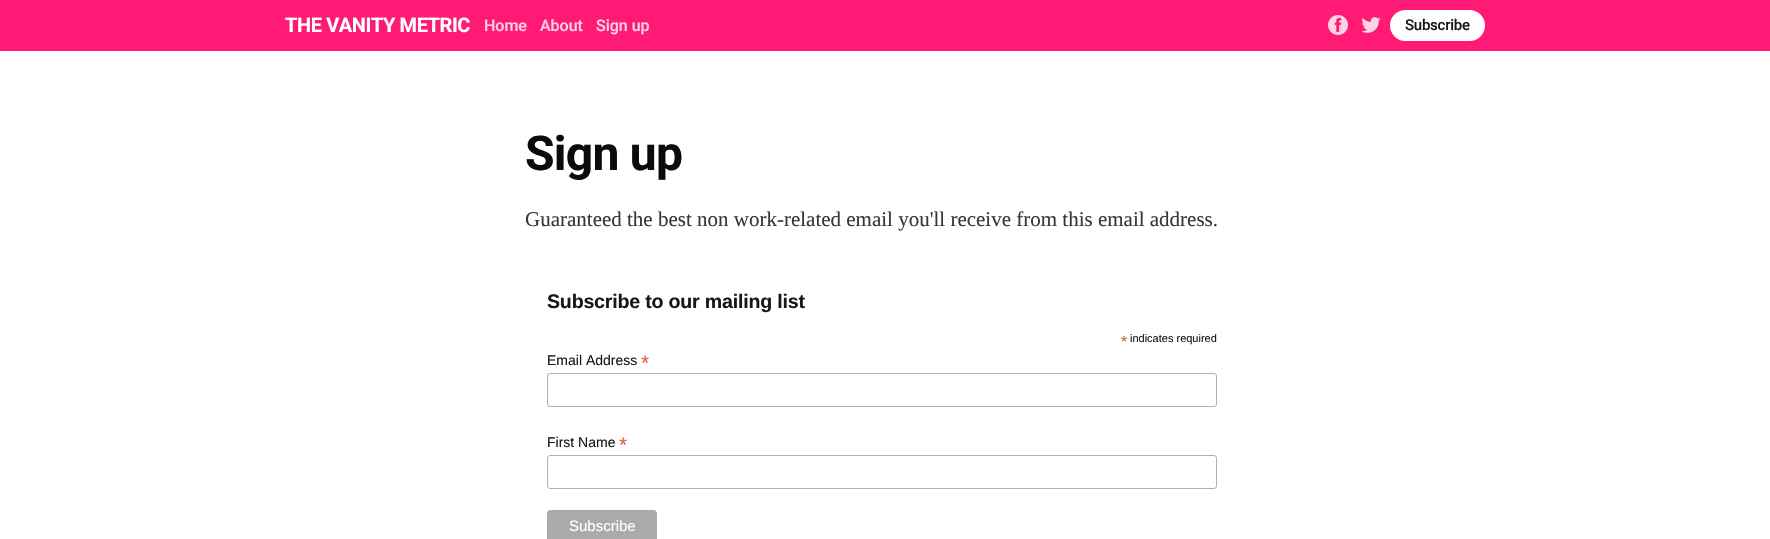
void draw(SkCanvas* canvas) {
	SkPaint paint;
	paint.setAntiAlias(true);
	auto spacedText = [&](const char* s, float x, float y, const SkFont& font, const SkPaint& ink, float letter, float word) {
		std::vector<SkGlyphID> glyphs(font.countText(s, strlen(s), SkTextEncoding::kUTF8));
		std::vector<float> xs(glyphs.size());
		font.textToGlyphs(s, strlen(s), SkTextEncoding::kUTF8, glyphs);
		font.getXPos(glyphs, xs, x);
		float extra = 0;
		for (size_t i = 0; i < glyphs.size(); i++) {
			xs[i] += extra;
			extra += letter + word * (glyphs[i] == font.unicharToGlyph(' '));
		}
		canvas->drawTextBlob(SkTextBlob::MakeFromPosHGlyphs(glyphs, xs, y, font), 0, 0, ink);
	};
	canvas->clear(0xffffffff);
	paint.setColor(0xffff1a75);
	canvas->drawRect(SkRect::MakeXYWH(0, 0, 1770, 51), paint);
	SkFont f1(fontMgr->matchFamilyStyle("Roboto", SkFontStyle::Bold()), 20);
	f1.setSubpixel(true);
	paint.setColor(0xffffffff);
	spacedText("THE VANITY METRIC", 285, 32, f1, paint, -0.4, 0);
	SkFont f2(fontMgr->matchFamilyStyle("Roboto", SkFontStyle(500, SkFontStyle::kNormal_Width, SkFontStyle::kUpright_Slant)), 16);
	f2.setSubpixel(true);
	paint.setColor(0xffffd1e3);
	canvas->drawString("Home", 484, 31, f2, paint);
	canvas->drawString("About", 540, 31, f2, paint);
	canvas->drawString("Sign up", 596, 31, f2, paint);
	canvas->drawImageRect(SkImages::DeferredFromEncodedData(SkData::MakeFromFileName("img1.png")), SkRect::MakeXYWH(1328, 15, 20, 20), SkSamplingOptions());
	canvas->drawImageRect(SkImages::DeferredFromEncodedData(SkData::MakeFromFileName("img2.png")), SkRect::MakeXYWH(1361, 17, 20, 16), SkSamplingOptions());
	paint.setColor(0xffffffff);
	canvas->drawRoundRect(SkRect::MakeXYWH(1390, 10, 95, 31), 15.5, 15.5, paint);
	SkFont f3(fontMgr->matchFamilyStyle("Roboto", SkFontStyle(500, SkFontStyle::kNormal_Width, SkFontStyle::kUpright_Slant)), 15);
	f3.setSubpixel(true);
	paint.setColor(0xff15171a);
	spacedText("Subscribe", 1405, 30, f3, paint, -0.25, 0);
	SkFont f4(fontMgr->matchFamilyStyle("Roboto", SkFontStyle::Bold()), 48);
	f4.setSubpixel(true);
	paint.setColor(0xff0a0b0c);
	spacedText("Sign up", 525, 170, f4, paint, -0.75, 0);
	SkFont f5(fontMgr->matchFamilyStyle("Liberation Serif", SkFontStyle::Normal()), 21);
	f5.setSubpixel(true);
	paint.setColor(0xff35373a);
	canvas->drawString("Guaranteed the best non work-related email you'll receive from this email address.", 525, 226, f5, paint);
	SkFont f6(fontMgr->matchFamilyStyle("Liberation Sans", SkFontStyle::Bold()), 19.6);
	f6.setSubpixel(true);
	paint.setColor(0xff15171a);
	spacedText("Subscribe to our mailing list", 547, 308, f6, paint, -0.2, 0);
	SkFont f7(fontMgr->matchFamilyStyle("Liberation Sans", SkFontStyle::Normal()), 16);
	f7.setSubpixel(true);
	paint.setColor(0xffe85c41);
	canvas->drawString("*", 1121, 347, f7, paint);
	SkFont f8(fontMgr->matchFamilyStyle("Liberation Sans", SkFontStyle::Normal()), 11);
	f8.setSubpixel(true);
	paint.setColor(0xff15171a);
	canvas->drawString("indicates required", 1130, 342, f8, paint);
	SkFont f9(fontMgr->matchFamilyStyle("Liberation Sans", SkFontStyle::Normal()), 14);
	f9.setSubpixel(true);
	canvas->drawString("Email Address", 547, 365, f9, paint);
	SkFont f10(fontMgr->matchFamilyStyle("Liberation Sans", SkFontStyle::Normal()), 21);
	f10.setSubpixel(true);
	paint.setColor(0xffe85c41);
	canvas->drawString("*", 641, 370, f10, paint);
	paint.setStroke(true);
	paint.setStrokeWidth(1);
	paint.setColor(0xffabb0b2);
	canvas->drawRoundRect(SkRect::MakeXYWH(547.5, 373.5, 669, 33), 2.5, 2.5, paint);
	paint.setStroke(false);
	paint.setColor(0xff15171a);
	canvas->drawString("First Name", 547, 447, f9, paint);
	paint.setColor(0xffe85c41);
	canvas->drawString("*", 619, 452, f10, paint);
	paint.setStroke(true);
	paint.setColor(0xffabb0b2);
	canvas->drawRoundRect(SkRect::MakeXYWH(547.5, 455.5, 669, 33), 2.5, 2.5, paint);
	paint.setStroke(false);
	paint.setColor(0xffaaaaaa);
	canvas->drawRoundRect(SkRect::MakeXYWH(547, 510, 110, 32), 4, 4, paint);
	SkFont f11(fontMgr->matchFamilyStyle("Liberation Sans", SkFontStyle::Normal()), 15);
	f11.setSubpixel(true);
	paint.setColor(0xffffffff);
	canvas->drawString("Subscribe", 569, 531, f11, paint);
}
